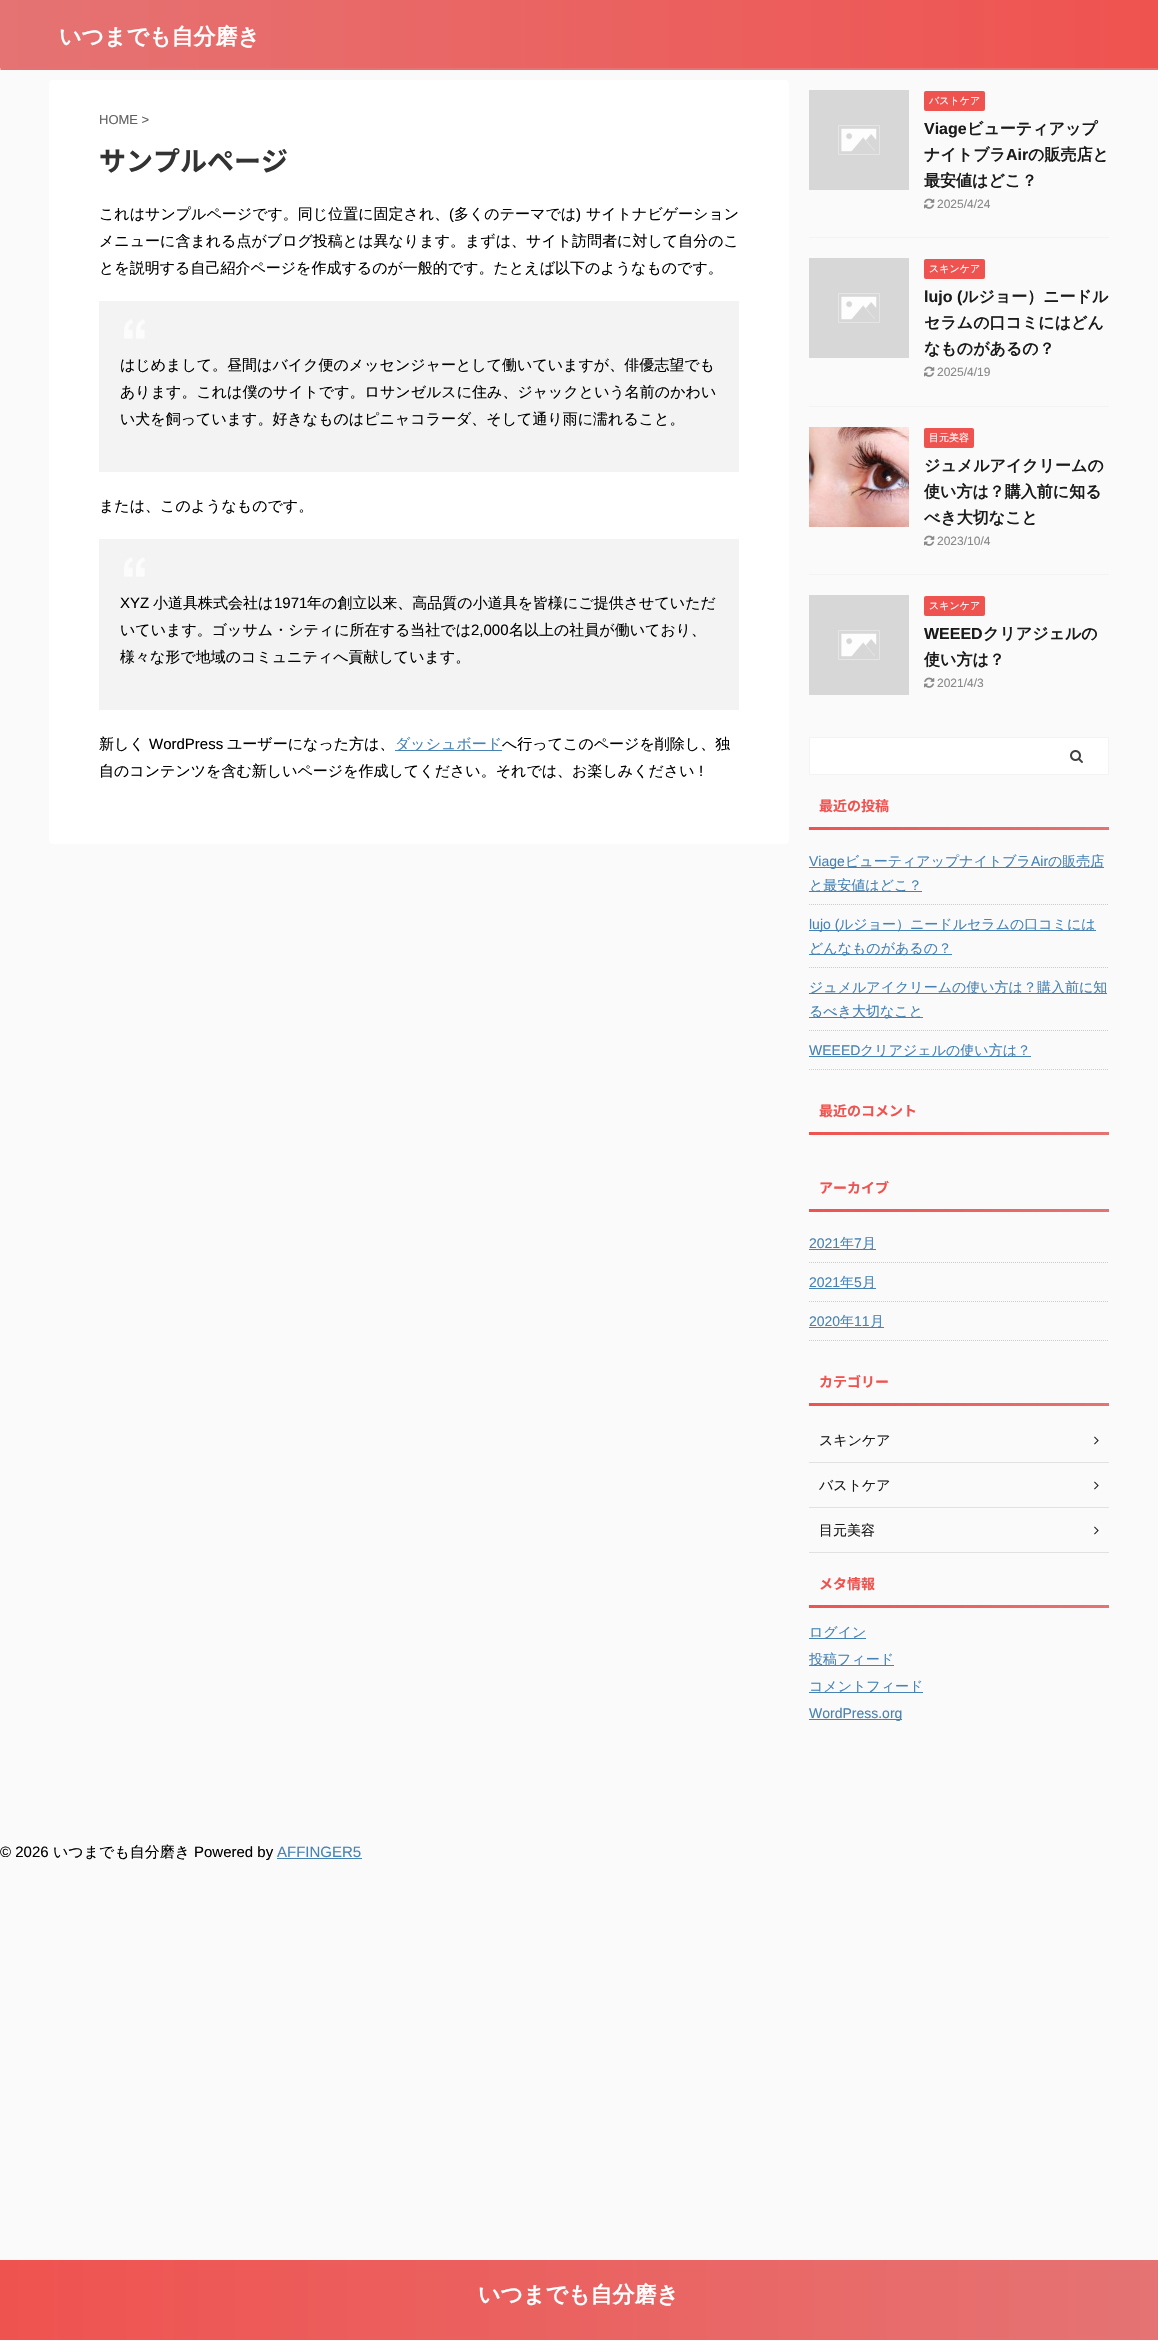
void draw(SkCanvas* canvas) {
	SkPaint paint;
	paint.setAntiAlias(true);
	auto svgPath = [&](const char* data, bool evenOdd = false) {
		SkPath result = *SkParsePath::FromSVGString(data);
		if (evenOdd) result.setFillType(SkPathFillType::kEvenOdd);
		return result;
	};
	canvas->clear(0xfffafafa);
	{
		const SkColor colors[] = {0xffef5350, 0xffe57373};
		const float stops[] = {0, 1};
		const SkPoint ends[] = {{1158, 34}, {0, 34}};
		paint.setShader(SkGradientShader::MakeLinear(ends, colors, stops, 2, SkTileMode::kClamp));
		paint.setAlpha(255);
	}
	canvas->drawRect(SkRect::MakeXYWH(0, 0, 1158, 68), paint);
	SkFont f1(fontMgr->matchFamilyStyle("WenQuanYi Zen Hei", SkFontStyle::Bold()), 22);
	f1.setSubpixel(true);
	paint.setShader(nullptr);
	paint.setColor(0xffffffff);
	canvas->drawString("いつまでも自分磨き", 59, 44, f1, paint);
	paint.setColor(0xffe57373);
	canvas->drawRect(SkRect::MakeXYWH(1, 68, 1157, 1), paint);
	paint.setStroke(true);
	paint.setStrokeWidth(1);
	paint.setColor(0xffef5350);
	canvas->drawPath(svgPath("M1157.5 68.5V69.5"), paint);
	paint.setStroke(false);
	paint.setColor(0xffe57373);
	canvas->drawRect(SkRect::MakeXYWH(1, 69, 1157, 1), paint);
	paint.setStroke(true);
	paint.setColor(0xffef5350);
	canvas->drawPath(svgPath("M.5 69.5V68.5"), paint);
	paint.setStroke(false);
	paint.setColor(0xffffffff);
	canvas->drawRoundRect(SkRect::MakeXYWH(49, 80, 740, 764), 4, 4, paint);
	SkFont f2(fontMgr->matchFamilyStyle("Liberation Sans", SkFontStyle::Normal()), 13);
	f2.setSubpixel(true);
	paint.setColor(0xff616161);
	canvas->drawString("HOME >", 99, 124, f2, paint);
	SkFont f3(fontMgr->matchFamilyStyle("Noto Sans JP", SkFontStyle::Bold()), 27);
	f3.setSubpixel(true);
	paint.setColor(0xff333333);
	canvas->drawString("サンプルページ", 99, 171, f3, paint);
	SkFont f4(fontMgr->matchFamilyStyle("WenQuanYi Zen Hei", SkFontStyle(500, SkFontStyle::kNormal_Width, SkFontStyle::kUpright_Slant)), 15);
	f4.setSubpixel(true);
	paint.setColor(0xff000000);
	canvas->drawString("これはサンプルページです。同じ位置に固定され、", 99, 219, f4, paint);
	SkFont f5(fontMgr->matchFamilyStyle("Liberation Sans", SkFontStyle::Normal()), 15);
	f5.setSubpixel(true);
	canvas->drawString("(", 449, 219, f5, paint);
	canvas->drawString("多くのテーマでは", 454, 219, f4, paint);
	canvas->drawString(")", 576, 219, f5, paint);
	canvas->drawString("サイトナビゲーション", 586, 219, f4, paint);
	canvas->drawString("メニューに含まれる点がブログ投稿とは異なります。まずは、サイト訪問者に対して自分のこ", 99, 246, f4, paint);
	canvas->drawString("とを説明する自己紹介ページを作成するのが一般的です。たとえば以下のようなものです。", 99, 273, f4, paint);
	paint.setColor(0xfff3f3f3);
	canvas->drawRect(SkRect::MakeXYWH(99, 301, 640, 171), paint);
	canvas->drawImageRect(SkImages::DeferredFromEncodedData(SkData::MakeFromFileName("img1.png")), SkRect::MakeXYWH(124, 319, 21, 20), SkSamplingOptions());
	paint.setColor(0xff000000);
	canvas->drawString("はじめまして。昼間はバイク便のメッセンジャーとして働いていますが、俳優志望でも", 120, 370, f4, paint);
	canvas->drawString("あります。これは僕のサイトです。ロサンゼルスに住み、ジャックという名前のかわい", 120, 397, f4, paint);
	canvas->drawString("い犬を飼っています。好きなものはピニャコラーダ、そして通り雨に濡れること。", 120, 424, f4, paint);
	canvas->drawString("または、このようなものです。", 99, 511, f4, paint);
	paint.setColor(0xfff3f3f3);
	canvas->drawRect(SkRect::MakeXYWH(99, 539, 640, 171), paint);
	canvas->drawImageRect(SkImages::DeferredFromEncodedData(SkData::MakeFromFileName("img1.png")), SkRect::MakeXYWH(124, 557, 21, 20), SkSamplingOptions());
	paint.setColor(0xff000000);
	canvas->drawString("XYZ", 120, 608, f5, paint);
	canvas->drawString("小道具株式会社は", 153, 608, f4, paint);
	canvas->drawString("1971", 274, 608, f5, paint);
	canvas->drawString("年の創立以来、高品質の小道具を皆様にご提供させていただ", 307, 608, f4, paint);
	canvas->drawString("いています。ゴッサム・シティに所在する当社では", 120, 635, f4, paint);
	canvas->drawString("2,000", 471, 635, f5, paint);
	canvas->drawString("名以上の社員が働いており、", 509, 635, f4, paint);
	canvas->drawString("様々な形で地域のコミュニティへ貢献しています。", 120, 662, f4, paint);
	canvas->drawString("新しく", 99, 749, f4, paint);
	canvas->drawString("WordPress", 149, 749, f5, paint);
	canvas->drawString("ユーザーになった方は、", 227, 749, f4, paint);
	paint.setColor(0xff4682b4);
	canvas->drawRect(SkRect::MakeXYWH(395, 750, 107, 1), paint);
	canvas->drawString("ダッシュボード", 395, 749, f4, paint);
	paint.setColor(0xff000000);
	canvas->drawString("へ行ってこのページを削除し、独", 502, 749, f4, paint);
	canvas->drawString("自のコンテンツを含む新しいページを作成してください。それでは、お楽しみください", 99, 776, f4, paint);
	canvas->drawString("!", 699, 776, f5, paint);
	paint.setColor(0xfff3f3f3);
	canvas->drawRect(SkRect::MakeXYWH(809, 237, 300, 1), paint);
	canvas->drawImageRect(SkImages::DeferredFromEncodedData(SkData::MakeFromFileName("img2.png")), SkRect::MakeXYWH(809, 90, 100, 100), SkSamplingOptions());
	paint.setColor(0xffef5350);
	canvas->drawRoundRect(SkRect::MakeXYWH(924, 91, 61, 20), 2, 2, paint);
	SkFont f6(fontMgr->matchFamilyStyle("WenQuanYi Zen Hei", SkFontStyle(500, SkFontStyle::kNormal_Width, SkFontStyle::kUpright_Slant)), 10);
	f6.setSubpixel(true);
	paint.setColor(0xffffffff);
	canvas->drawString("バストケア", 929, 104, f6, paint);
	SkFont f7(fontMgr->matchFamilyStyle("Liberation Sans", SkFontStyle::Bold()), 16);
	f7.setSubpixel(true);
	paint.setColor(0xff1a1a1a);
	canvas->drawString("Viage", 924, 134, f7, paint);
	SkFont f8(fontMgr->matchFamilyStyle("WenQuanYi Zen Hei", SkFontStyle::Bold()), 16);
	f8.setSubpixel(true);
	canvas->drawString("ビューティアップ", 967, 134, f8, paint);
	canvas->drawString("ナイトブラ", 924, 160, f8, paint);
	canvas->drawString("Air", 1006, 160, f7, paint);
	canvas->drawString("の販売店と", 1028, 160, f8, paint);
	canvas->drawString("最安値はどこ？", 924, 186, f8, paint);
	canvas->drawImageRect(SkImages::DeferredFromEncodedData(SkData::MakeFromFileName("img3.png")), SkRect::MakeXYWH(924, 198, 11, 11), SkSamplingOptions());
	SkFont f9(fontMgr->matchFamilyStyle("Liberation Sans", SkFontStyle::Normal()), 12);
	f9.setSubpixel(true);
	paint.setColor(0xff888888);
	canvas->drawString("2025/4/24", 937, 208, f9, paint);
	paint.setColor(0xfff3f3f3);
	canvas->drawRect(SkRect::MakeXYWH(809, 406, 300, 1), paint);
	canvas->drawImageRect(SkImages::DeferredFromEncodedData(SkData::MakeFromFileName("img2.png")), SkRect::MakeXYWH(809, 258, 100, 100), SkSamplingOptions());
	paint.setColor(0xffef5350);
	canvas->drawRoundRect(SkRect::MakeXYWH(924, 259, 61, 20), 2, 2, paint);
	paint.setColor(0xffffffff);
	canvas->drawString("スキンケア", 929, 272, f6, paint);
	paint.setColor(0xff1a1a1a);
	canvas->drawString("lujo (", 924, 302, f7, paint);
	canvas->drawString("ルジョー）ニードル", 962, 302, f8, paint);
	canvas->drawString("セラムの口コミにはどん", 924, 328, f8, paint);
	canvas->drawString("なものがあるの？", 924, 354, f8, paint);
	canvas->drawImageRect(SkImages::DeferredFromEncodedData(SkData::MakeFromFileName("img3.png")), SkRect::MakeXYWH(924, 366, 11, 11), SkSamplingOptions());
	paint.setColor(0xff888888);
	canvas->drawString("2025/4/19", 937, 376, f9, paint);
	paint.setColor(0xfff3f3f3);
	canvas->drawRect(SkRect::MakeXYWH(809, 574, 300, 1), paint);
	canvas->drawImageRect(SkImages::DeferredFromEncodedData(SkData::MakeFromFileName("img4.png")), SkRect::MakeXYWH(809, 427, 100, 100), SkSamplingOptions());
	paint.setColor(0xffef5350);
	canvas->drawRoundRect(SkRect::MakeXYWH(924, 428, 50, 20), 2, 2, paint);
	paint.setColor(0xffffffff);
	canvas->drawString("目元美容", 929, 441, f6, paint);
	paint.setColor(0xff1a1a1a);
	canvas->drawString("ジュメルアイクリームの", 924, 471, f8, paint);
	canvas->drawString("使い方は？購入前に知る", 924, 497, f8, paint);
	canvas->drawString("べき大切なこと", 924, 523, f8, paint);
	canvas->drawImageRect(SkImages::DeferredFromEncodedData(SkData::MakeFromFileName("img3.png")), SkRect::MakeXYWH(924, 535, 11, 11), SkSamplingOptions());
	paint.setColor(0xff888888);
	canvas->drawString("2023/10/4", 937, 545, f9, paint);
	canvas->drawImageRect(SkImages::DeferredFromEncodedData(SkData::MakeFromFileName("img2.png")), SkRect::MakeXYWH(809, 595, 100, 100), SkSamplingOptions());
	paint.setColor(0xffef5350);
	canvas->drawRoundRect(SkRect::MakeXYWH(924, 596, 61, 20), 2, 2, paint);
	paint.setColor(0xffffffff);
	canvas->drawString("スキンケア", 929, 609, f6, paint);
	paint.setColor(0xff1a1a1a);
	canvas->drawString("WEEED", 924, 639, f7, paint);
	canvas->drawString("クリアジェルの", 983, 639, f8, paint);
	canvas->drawString("使い方は？", 924, 665, f8, paint);
	canvas->drawImageRect(SkImages::DeferredFromEncodedData(SkData::MakeFromFileName("img3.png")), SkRect::MakeXYWH(924, 677, 11, 11), SkSamplingOptions());
	paint.setColor(0xff888888);
	canvas->drawString("2021/4/3", 937, 687, f9, paint);
	paint.setStroke(true);
	paint.setColor(0xfff3f3f3);
	canvas->drawRect(SkRect::MakeXYWH(809.5, 737.5, 299, 37), paint);
	paint.setStroke(false);
	paint.setColor(0xffffffff);
	canvas->drawRect(SkRect::MakeXYWH(810, 738, 298, 36), paint);
	canvas->drawImageRect(SkImages::DeferredFromEncodedData(SkData::MakeFromFileName("img5.png")), SkRect::MakeXYWH(1070, 750, 13, 13), SkSamplingOptions());
	SkFont f10(fontMgr->matchFamilyStyle("Noto Sans JP", SkFontStyle::Bold()), 14);
	f10.setSubpixel(true);
	paint.setColor(0xffef5350);
	canvas->drawString("最近の投稿", 819, 811, f10, paint);
	{
		const SkColor colors[] = {0xffe57373, 0xffef5350};
		const float stops[] = {0, 1};
		const SkPoint ends[] = {{1109, 829}, {809, 829}};
		paint.setShader(SkGradientShader::MakeLinear(ends, colors, stops, 2, SkTileMode::kClamp));
		paint.setAlpha(255);
	}
	canvas->drawRect(SkRect::MakeXYWH(809, 827, 300, 3), paint);
	paint.setStroke(true);
	paint.setShader(nullptr);
	paint.setColor(0xffcccccc);
	paint.setPathEffect(SkDashPathEffect::Make({{1, 1}}, 0));
	canvas->drawPath(svgPath("M809 904.5H1109"), paint);
	paint.setPathEffect(nullptr);
	paint.setStroke(false);
	paint.setColor(0xff4682b4);
	canvas->drawRect(SkRect::MakeXYWH(809, 867, 295, 1), paint);
	SkFont f11(fontMgr->matchFamilyStyle("Liberation Sans", SkFontStyle::Normal()), 14);
	f11.setSubpixel(true);
	canvas->drawString("Viage", 809, 866, f11, paint);
	SkFont f12(fontMgr->matchFamilyStyle("WenQuanYi Zen Hei", SkFontStyle(500, SkFontStyle::kNormal_Width, SkFontStyle::kUpright_Slant)), 14);
	f12.setSubpixel(true);
	canvas->drawString("ビューティアップナイトブラ", 845, 866, f12, paint);
	canvas->drawString("Air", 1031, 866, f11, paint);
	canvas->drawString("の販売店", 1048, 866, f12, paint);
	canvas->drawRect(SkRect::MakeXYWH(809, 891, 113, 1), paint);
	canvas->drawString("と最安値はどこ？", 809, 890, f12, paint);
	paint.setStroke(true);
	paint.setColor(0xffcccccc);
	paint.setPathEffect(SkDashPathEffect::Make({{1, 1}}, 0));
	canvas->drawPath(svgPath("M809 967.5H1109"), paint);
	paint.setPathEffect(nullptr);
	paint.setStroke(false);
	paint.setColor(0xff4682b4);
	canvas->drawRect(SkRect::MakeXYWH(809, 930, 287, 1), paint);
	canvas->drawString("lujo (", 809, 929, f11, paint);
	canvas->drawString("ルジョー）ニードルセラムの口コミには", 839, 929, f12, paint);
	canvas->drawRect(SkRect::MakeXYWH(809, 954, 143, 1), paint);
	canvas->drawString("どんなものがあるの？", 809, 953, f12, paint);
	paint.setStroke(true);
	paint.setColor(0xffcccccc);
	paint.setPathEffect(SkDashPathEffect::Make({{1, 1}}, 0));
	canvas->drawPath(svgPath("M809 1030.5H1109"), paint);
	paint.setPathEffect(nullptr);
	paint.setStroke(false);
	paint.setColor(0xff4682b4);
	canvas->drawRect(SkRect::MakeXYWH(809, 993, 298, 1), paint);
	canvas->drawString("ジュメルアイクリームの使い方は？購入前に知", 809, 992, f12, paint);
	canvas->drawRect(SkRect::MakeXYWH(809, 1017, 114, 1), paint);
	canvas->drawString("るべき大切なこと", 809, 1016, f12, paint);
	paint.setStroke(true);
	paint.setColor(0xffcccccc);
	paint.setPathEffect(SkDashPathEffect::Make({{1, 1}}, 0));
	canvas->drawPath(svgPath("M809 1069.5H1109"), paint);
	paint.setPathEffect(nullptr);
	paint.setStroke(false);
	paint.setColor(0xff4682b4);
	canvas->drawString("WEEED", 809, 1055, f11, paint);
	canvas->drawRect(SkRect::MakeXYWH(809, 1056, 222, 1), paint);
	canvas->drawString("クリアジェルの使い方は？", 860, 1055, f12, paint);
	paint.setColor(0xffef5350);
	canvas->drawString("最近のコメント", 819, 1116, f10, paint);
	{
		const SkColor colors[] = {0xffe57373, 0xffef5350};
		const float stops[] = {0, 1};
		const SkPoint ends[] = {{1109, 1134}, {809, 1134}};
		paint.setShader(SkGradientShader::MakeLinear(ends, colors, stops, 2, SkTileMode::kClamp));
		paint.setAlpha(255);
	}
	canvas->drawRect(SkRect::MakeXYWH(809, 1132, 300, 3), paint);
	paint.setShader(nullptr);
	paint.setColor(0xffef5350);
	canvas->drawString("アーカイブ", 819, 1193, f10, paint);
	{
		const SkColor colors[] = {0xffe57373, 0xffef5350};
		const float stops[] = {0, 1};
		const SkPoint ends[] = {{1109, 1211}, {809, 1211}};
		paint.setShader(SkGradientShader::MakeLinear(ends, colors, stops, 2, SkTileMode::kClamp));
		paint.setAlpha(255);
	}
	canvas->drawRect(SkRect::MakeXYWH(809, 1209, 300, 3), paint);
	paint.setStroke(true);
	paint.setShader(nullptr);
	paint.setColor(0xffcccccc);
	paint.setPathEffect(SkDashPathEffect::Make({{1, 1}}, 0));
	canvas->drawPath(svgPath("M809 1262.5H1109"), paint);
	paint.setPathEffect(nullptr);
	paint.setStroke(false);
	paint.setColor(0xff4682b4);
	canvas->drawString("2021", 809, 1248, f11, paint);
	canvas->drawRect(SkRect::MakeXYWH(809, 1249, 67, 1), paint);
	canvas->drawString("年", 840, 1248, f12, paint);
	canvas->drawString("7", 854, 1248, f11, paint);
	canvas->drawString("月", 862, 1248, f12, paint);
	paint.setStroke(true);
	paint.setColor(0xffcccccc);
	paint.setPathEffect(SkDashPathEffect::Make({{1, 1}}, 0));
	canvas->drawPath(svgPath("M809 1301.5H1109"), paint);
	paint.setPathEffect(nullptr);
	paint.setStroke(false);
	paint.setColor(0xff4682b4);
	canvas->drawString("2021", 809, 1287, f11, paint);
	canvas->drawRect(SkRect::MakeXYWH(809, 1288, 67, 1), paint);
	canvas->drawString("年", 840, 1287, f12, paint);
	canvas->drawString("5", 854, 1287, f11, paint);
	canvas->drawString("月", 862, 1287, f12, paint);
	paint.setStroke(true);
	paint.setColor(0xffcccccc);
	paint.setPathEffect(SkDashPathEffect::Make({{1, 1}}, 0));
	canvas->drawPath(svgPath("M809 1340.5H1109"), paint);
	paint.setPathEffect(nullptr);
	paint.setStroke(false);
	paint.setColor(0xff4682b4);
	canvas->drawString("2020", 809, 1326, f11, paint);
	canvas->drawRect(SkRect::MakeXYWH(809, 1327, 75, 1), paint);
	canvas->drawString("年", 840, 1326, f12, paint);
	canvas->drawString("11", 854, 1326, f11, paint);
	canvas->drawString("月", 870, 1326, f12, paint);
	paint.setColor(0xffef5350);
	canvas->drawString("カテゴリー", 819, 1387, f10, paint);
	{
		const SkColor colors[] = {0xffe57373, 0xffef5350};
		const float stops[] = {0, 1};
		const SkPoint ends[] = {{1109, 1405}, {809, 1405}};
		paint.setShader(SkGradientShader::MakeLinear(ends, colors, stops, 2, SkTileMode::kClamp));
		paint.setAlpha(255);
	}
	canvas->drawRect(SkRect::MakeXYWH(809, 1403, 300, 3), paint);
	paint.setShader(nullptr);
	paint.setColor(0xffe1e1e1);
	canvas->drawRect(SkRect::MakeXYWH(809, 1462, 300, 1), paint);
	paint.setColor(0xff1a1a1a);
	canvas->drawString("スキンケア", 819, 1445, f12, paint);
	canvas->drawImageRect(SkImages::DeferredFromEncodedData(SkData::MakeFromFileName("img6.png")), SkRect::MakeXYWH(1094, 1436, 5, 9), SkSamplingOptions());
	paint.setColor(0xffe1e1e1);
	canvas->drawRect(SkRect::MakeXYWH(809, 1507, 300, 1), paint);
	paint.setColor(0xff1a1a1a);
	canvas->drawString("バストケア", 819, 1490, f12, paint);
	canvas->drawImageRect(SkImages::DeferredFromEncodedData(SkData::MakeFromFileName("img6.png")), SkRect::MakeXYWH(1094, 1481, 5, 9), SkSamplingOptions());
	paint.setColor(0xffe1e1e1);
	canvas->drawRect(SkRect::MakeXYWH(809, 1552, 300, 1), paint);
	paint.setColor(0xff1a1a1a);
	canvas->drawString("目元美容", 819, 1535, f12, paint);
	canvas->drawImageRect(SkImages::DeferredFromEncodedData(SkData::MakeFromFileName("img6.png")), SkRect::MakeXYWH(1094, 1526, 5, 9), SkSamplingOptions());
	paint.setColor(0xffef5350);
	canvas->drawString("メタ情報", 819, 1589, f10, paint);
	{
		const SkColor colors[] = {0xffe57373, 0xffef5350};
		const float stops[] = {0, 1};
		const SkPoint ends[] = {{1109, 1607}, {809, 1607}};
		paint.setShader(SkGradientShader::MakeLinear(ends, colors, stops, 2, SkTileMode::kClamp));
		paint.setAlpha(255);
	}
	canvas->drawRect(SkRect::MakeXYWH(809, 1605, 300, 3), paint);
	paint.setShader(nullptr);
	paint.setColor(0xff4682b4);
	canvas->drawRect(SkRect::MakeXYWH(809, 1638, 57, 1), paint);
	canvas->drawString("ログイン", 809, 1637, f12, paint);
	canvas->drawRect(SkRect::MakeXYWH(809, 1665, 85, 1), paint);
	canvas->drawString("投稿フィード", 809, 1664, f12, paint);
	canvas->drawRect(SkRect::MakeXYWH(809, 1692, 114, 1), paint);
	canvas->drawString("コメントフィード", 809, 1691, f12, paint);
	canvas->drawRect(SkRect::MakeXYWH(809, 1719, 93, 1), paint);
	canvas->drawString("WordPress.org", 809, 1718, f11, paint);
	{
		const SkColor colors[] = {0xffe57373, 0xffef5350};
		const float stops[] = {0, 1};
		const SkPoint ends[] = {{1158, 2300}, {0, 2300}};
		paint.setShader(SkGradientShader::MakeLinear(ends, colors, stops, 2, SkTileMode::kClamp));
		paint.setAlpha(255);
	}
	canvas->drawRect(SkRect::MakeXYWH(0, 2260, 1158, 80), paint);
	paint.setShader(nullptr);
	paint.setColor(0xffffffff);
	canvas->drawString("いつまでも自分磨き", 478, 2302, f1, paint);
	paint.setColor(0xff000000);
	canvas->drawString("© 2026", 0, 1857, f5, paint);
	canvas->drawString("いつまでも自分磨き", 53, 1857, f4, paint);
	canvas->drawString("Powered by", 194, 1857, f5, paint);
	paint.setColor(0xff4682b4);
	canvas->drawString("AFFINGER5", 277, 1857, f5, paint);
	canvas->drawRect(SkRect::MakeXYWH(277, 1858, 85, 1), paint);
}
